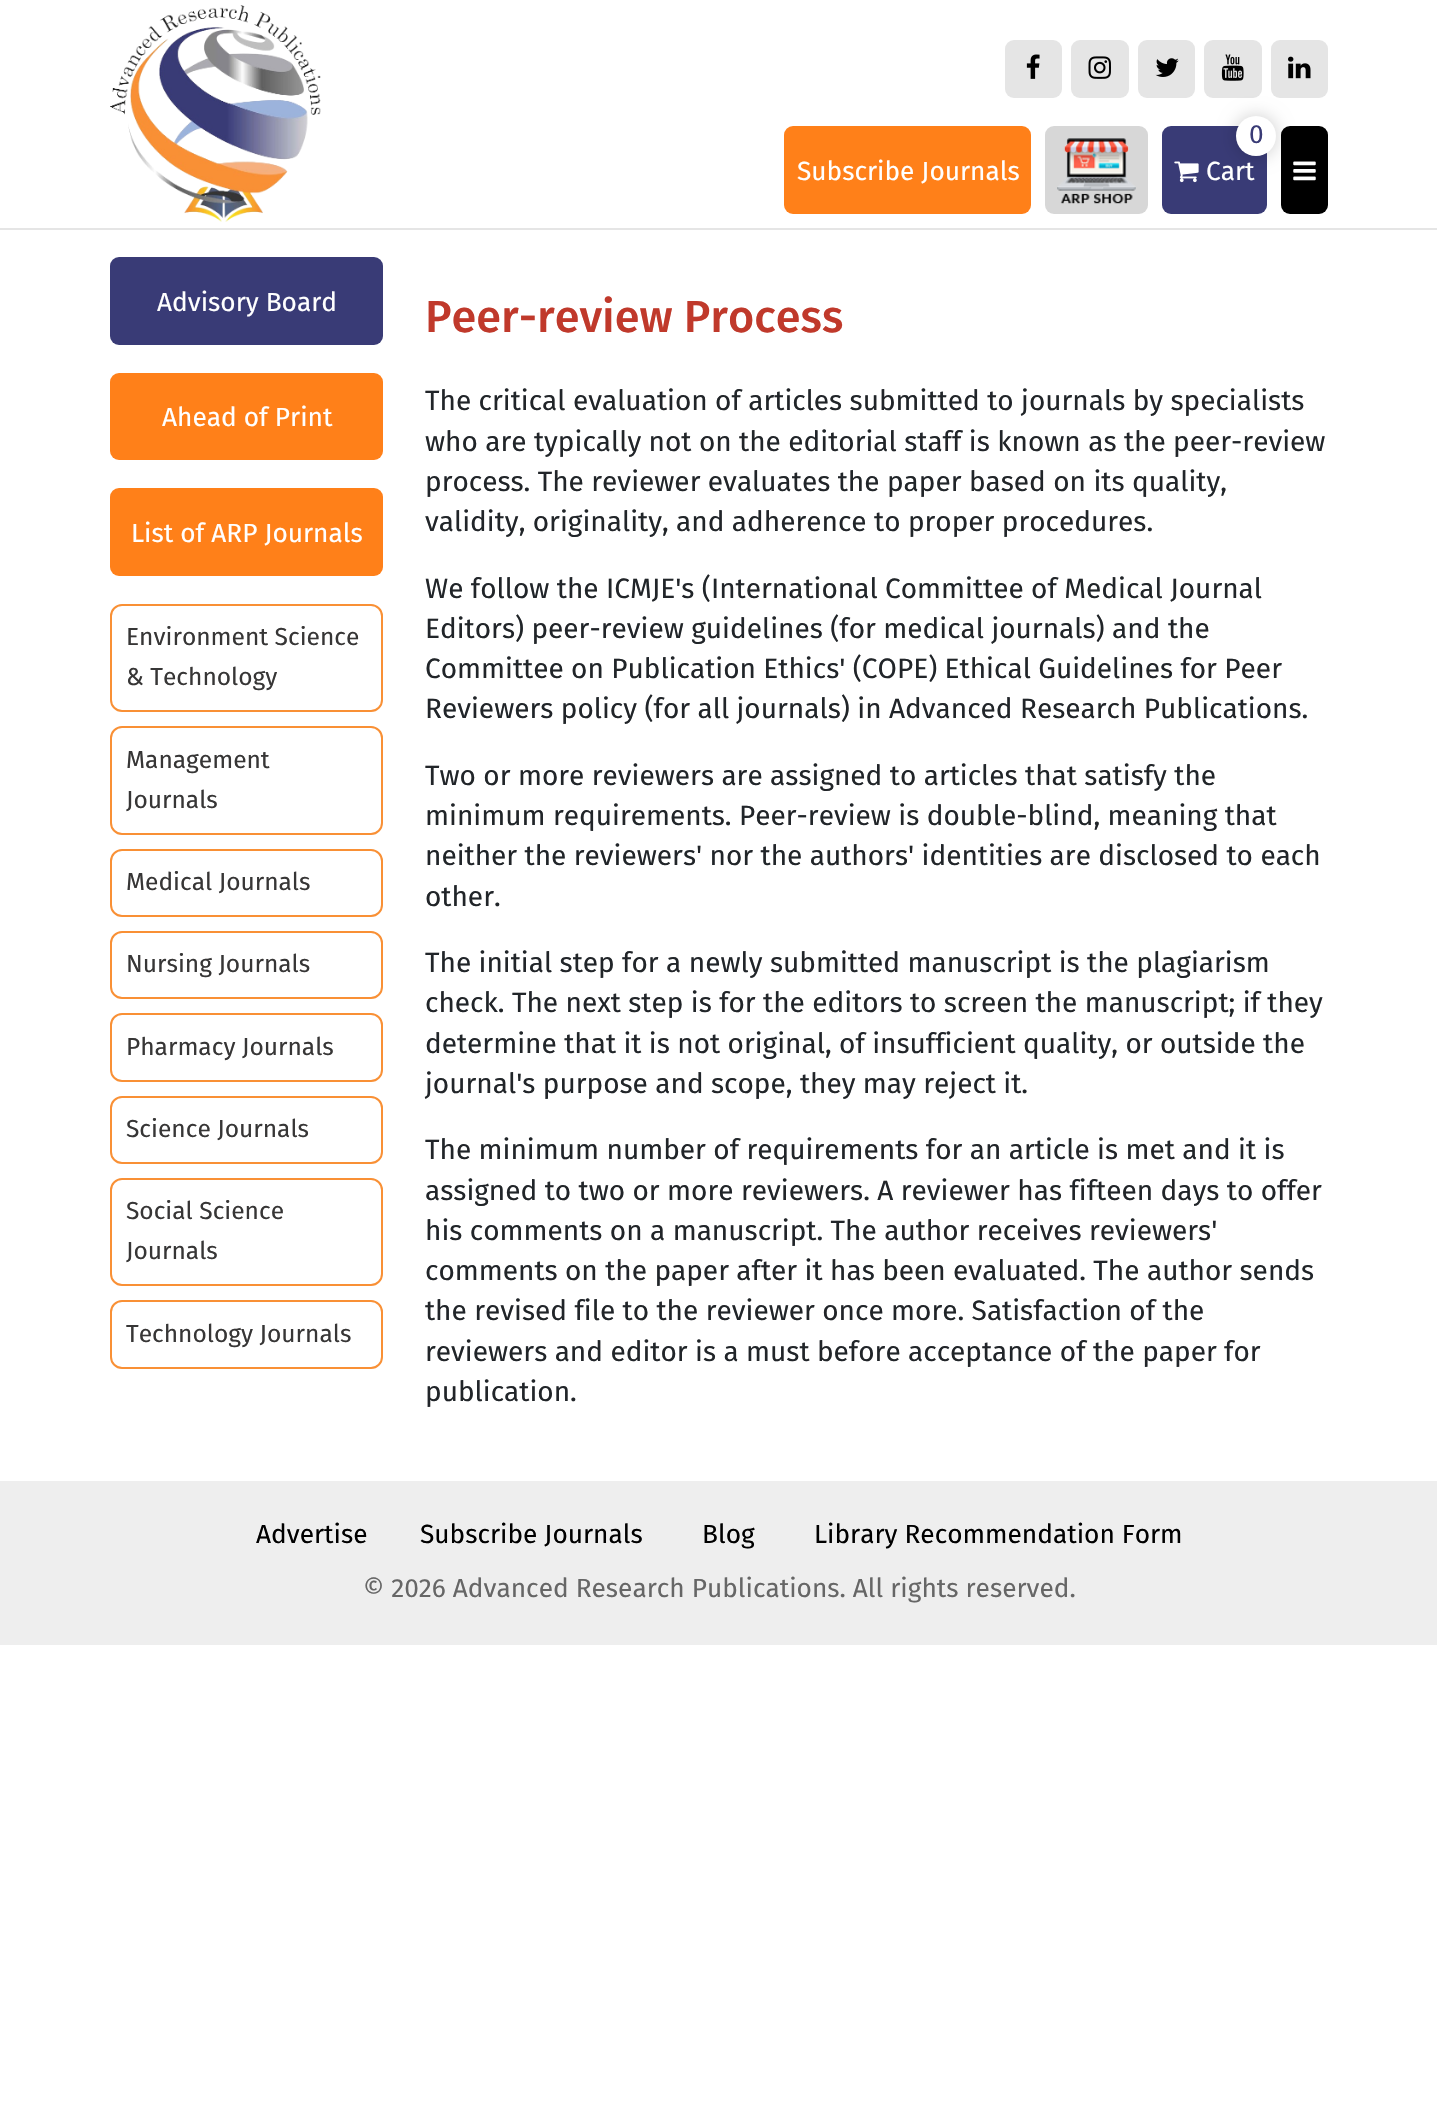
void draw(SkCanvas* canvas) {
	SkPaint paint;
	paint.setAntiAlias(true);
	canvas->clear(0xffffffff);
	paint.setColor(0xffe5e5e5);
	canvas->drawRect(SkRect::MakeXYWH(0, 228, 1437, 2), paint);
	canvas->drawImageRect(SkImages::DeferredFromEncodedData(SkData::MakeFromFileName("img1.png")), SkRect::MakeXYWH(110, 5, 211, 217), SkSamplingOptions());
	canvas->drawRoundRect(SkRect::MakeXYWH(1005, 40, 57, 58), 9, 9, paint);
	canvas->drawImageRect(SkImages::DeferredFromEncodedData(SkData::MakeFromFileName("img2.png")), SkRect::MakeXYWH(1026, 54, 14, 25), SkSamplingOptions());
	canvas->drawRoundRect(SkRect::MakeXYWH(1071, 40, 58, 58), 9, 9, paint);
	canvas->drawImageRect(SkImages::DeferredFromEncodedData(SkData::MakeFromFileName("img3.png")), SkRect::MakeXYWH(1088, 56, 23, 23), SkSamplingOptions());
	canvas->drawRoundRect(SkRect::MakeXYWH(1138, 40, 57, 58), 9, 9, paint);
	canvas->drawImageRect(SkImages::DeferredFromEncodedData(SkData::MakeFromFileName("img4.png")), SkRect::MakeXYWH(1155, 58, 24, 19), SkSamplingOptions());
	canvas->drawRoundRect(SkRect::MakeXYWH(1204, 40, 58, 58), 9, 9, paint);
	canvas->drawImageRect(SkImages::DeferredFromEncodedData(SkData::MakeFromFileName("img5.png")), SkRect::MakeXYWH(1221, 54, 23, 27), SkSamplingOptions());
	canvas->drawRoundRect(SkRect::MakeXYWH(1271, 40, 57, 58), 9, 9, paint);
	canvas->drawImageRect(SkImages::DeferredFromEncodedData(SkData::MakeFromFileName("img6.png")), SkRect::MakeXYWH(1288, 56, 23, 23), SkSamplingOptions());
	paint.setColor(0xffff8019);
	canvas->drawRoundRect(SkRect::MakeXYWH(784, 126, 247, 88), 9, 9, paint);
	SkFont f1(fontMgr->matchFamilyStyle("Fira Sans", SkFontStyle::Normal()), 26.25);
	f1.setSubpixel(true);
	paint.setColor(0xffffffff);
	canvas->drawString("Subscribe Journals", 797, 180, f1, paint);
	paint.setColor(0xffd7d7d7);
	canvas->drawRoundRect(SkRect::MakeXYWH(1045, 126, 103, 88), 9, 9, paint);
	canvas->drawImageRect(SkImages::DeferredFromEncodedData(SkData::MakeFromFileName("img7.png")), SkRect::MakeXYWH(1057, 138, 79, 66), SkSamplingOptions());
	paint.setColor(0xff393b76);
	canvas->drawRoundRect(SkRect::MakeXYWH(1162, 126, 105, 88), 9, 9, paint);
	paint.setColor(0x33000000);
	paint.setMaskFilter(SkMaskFilter::MakeBlur(kNormal_SkBlurStyle, 9));
	canvas->drawRoundRect(SkRect::MakeXYWH(1236, 116, 40, 40), 20, 20, paint);
	paint.setMaskFilter(nullptr);
	paint.setColor(0xffffffff);
	canvas->drawCircle(1256, 136, 20, paint);
	paint.setColor(0xff393b76);
	canvas->drawString("0", 1249, 143, f1, paint);
	canvas->drawImageRect(SkImages::DeferredFromEncodedData(SkData::MakeFromFileName("img8.png")), SkRect::MakeXYWH(1174, 161, 25, 22), SkSamplingOptions());
	paint.setColor(0xffffffff);
	canvas->drawString("Cart", 1206, 180, f1, paint);
	paint.setColor(0xff000000);
	canvas->drawRoundRect(SkRect::MakeXYWH(1281, 126, 47, 88), 9, 9, paint);
	canvas->drawImageRect(SkImages::DeferredFromEncodedData(SkData::MakeFromFileName("img9.png")), SkRect::MakeXYWH(1293, 161, 23, 20), SkSamplingOptions());
	paint.setColor(0xff393b76);
	canvas->drawRoundRect(SkRect::MakeXYWH(110, 257, 273, 88), 9, 9, paint);
	paint.setColor(0xffffffff);
	canvas->drawString("Advisory Board", 157, 311, f1, paint);
	paint.setColor(0xffff8019);
	canvas->drawRoundRect(SkRect::MakeXYWH(110, 373, 273, 87), 9, 9, paint);
	paint.setColor(0xffffffff);
	canvas->drawString("Ahead of Print", 162, 426, f1, paint);
	paint.setColor(0xffff8019);
	canvas->drawRoundRect(SkRect::MakeXYWH(110, 488, 273, 88), 9, 9, paint);
	paint.setColor(0xffffffff);
	canvas->drawString("List of ARP Journals", 131, 542, f1, paint);
	paint.setStroke(true);
	paint.setStrokeWidth(2);
	paint.setColor(0xfff99035);
	canvas->drawRoundRect(SkRect::MakeXYWH(111, 605, 271, 106), 11, 11, paint);
	SkFont f2(fontMgr->matchFamilyStyle("Fira Sans", SkFontStyle::Normal()), 24.5);
	f2.setSubpixel(true);
	paint.setStroke(false);
	paint.setColor(0xff373636);
	canvas->drawString("Environment Science", 126, 645, f2, paint);
	canvas->drawString("& Technology", 126, 685, f2, paint);
	paint.setStroke(true);
	paint.setColor(0xfff99035);
	canvas->drawRoundRect(SkRect::MakeXYWH(111, 727, 271, 107), 11, 11, paint);
	paint.setStroke(false);
	paint.setColor(0xff373636);
	canvas->drawString("Management", 126, 768, f2, paint);
	canvas->drawString("Journals", 126, 808, f2, paint);
	paint.setStroke(true);
	paint.setColor(0xfff99035);
	canvas->drawRoundRect(SkRect::MakeXYWH(111, 850, 271, 66), 11, 11, paint);
	paint.setStroke(false);
	paint.setColor(0xff373636);
	canvas->drawString("Medical Journals", 126, 890, f2, paint);
	paint.setStroke(true);
	paint.setColor(0xfff99035);
	canvas->drawRoundRect(SkRect::MakeXYWH(111, 932, 271, 66), 11, 11, paint);
	paint.setStroke(false);
	paint.setColor(0xff373636);
	canvas->drawString("Nursing Journals", 126, 972, f2, paint);
	paint.setStroke(true);
	paint.setColor(0xfff99035);
	canvas->drawRoundRect(SkRect::MakeXYWH(111, 1014, 271, 67), 11, 11, paint);
	paint.setStroke(false);
	paint.setColor(0xff373636);
	canvas->drawString("Pharmacy Journals", 126, 1055, f2, paint);
	paint.setStroke(true);
	paint.setColor(0xfff99035);
	canvas->drawRoundRect(SkRect::MakeXYWH(111, 1097, 271, 66), 11, 11, paint);
	paint.setStroke(false);
	paint.setColor(0xff373636);
	canvas->drawString("Science Journals", 126, 1137, f2, paint);
	paint.setStroke(true);
	paint.setColor(0xfff99035);
	canvas->drawRoundRect(SkRect::MakeXYWH(111, 1179, 271, 106), 11, 11, paint);
	paint.setStroke(false);
	paint.setColor(0xff373636);
	canvas->drawString("Social Science", 126, 1219, f2, paint);
	canvas->drawString("Journals", 126, 1259, f2, paint);
	paint.setStroke(true);
	paint.setColor(0xfff99035);
	canvas->drawRoundRect(SkRect::MakeXYWH(111, 1301, 271, 67), 11, 11, paint);
	paint.setStroke(false);
	paint.setColor(0xff373636);
	canvas->drawString("Technology Journals", 126, 1342, f2, paint);
	SkFont f3(fontMgr->matchFamilyStyle("Fira Sans", SkFontStyle(500, SkFontStyle::kNormal_Width, SkFontStyle::kUpright_Slant)), 45);
	f3.setSubpixel(true);
	paint.setColor(0xffc0392b);
	canvas->drawString("Peer-review Process", 425, 332, f3, paint);
	SkFont f4(fontMgr->matchFamilyStyle("Fira Sans", SkFontStyle::Normal()), 28);
	f4.setSubpixel(true);
	paint.setColor(0xff212529);
	canvas->drawString("The critical evaluation of articles submitted to journals by specialists", 425, 410, f4, paint);
	canvas->drawString("who are typically not on the editorial staff is known as the peer-review", 425, 451, f4, paint);
	canvas->drawString("process. The reviewer evaluates the paper based on its quality,", 425, 491, f4, paint);
	canvas->drawString("validity, originality, and adherence to proper procedures.", 425, 531, f4, paint);
	canvas->drawString("We follow the ICMJE's (International Committee of Medical Journal", 425, 598, f4, paint);
	canvas->drawString("Editors) peer-review guidelines (for medical journals) and the", 425, 638, f4, paint);
	canvas->drawString("Committee on Publication Ethics' (COPE) Ethical Guidelines for Peer", 425, 678, f4, paint);
	canvas->drawString("Reviewers policy (for all journals) in Advanced Research Publications.", 425, 718, f4, paint);
	canvas->drawString("Two or more reviewers are assigned to articles that satisfy the", 425, 785, f4, paint);
	canvas->drawString("minimum requirements. Peer-review is double-blind, meaning that", 425, 825, f4, paint);
	canvas->drawString("neither the reviewers' nor the authors' identities are disclosed to each", 425, 865, f4, paint);
	canvas->drawString("other.", 425, 906, f4, paint);
	canvas->drawString("The initial step for a newly submitted manuscript is the plagiarism", 425, 972, f4, paint);
	canvas->drawString("check. The next step is for the editors to screen the manuscript; if they", 425, 1012, f4, paint);
	canvas->drawString("determine that it is not original, of insufficient quality, or outside the", 425, 1053, f4, paint);
	canvas->drawString("journal's purpose and scope, they may reject it.", 425, 1093, f4, paint);
	canvas->drawString("The minimum number of requirements for an article is met and it is", 425, 1159, f4, paint);
	canvas->drawString("assigned to two or more reviewers. A reviewer has fifteen days to offer", 425, 1200, f4, paint);
	canvas->drawString("his comments on a manuscript. The author receives reviewers'", 425, 1240, f4, paint);
	canvas->drawString("comments on the paper after it has been evaluated. The author sends", 425, 1280, f4, paint);
	canvas->drawString("the revised file to the reviewer once more. Satisfaction of the", 425, 1320, f4, paint);
	canvas->drawString("reviewers and editor is a must before acceptance of the paper for", 425, 1361, f4, paint);
	canvas->drawString("publication.", 425, 1401, f4, paint);
	paint.setColor(0xffeeeeee);
	canvas->drawRect(SkRect::MakeXYWH(0, 1481, 1437, 164), paint);
	paint.setColor(0xff000000);
	canvas->drawString("Advertise", 256, 1543, f1, paint);
	canvas->drawString("Subscribe Journals", 420, 1543, f1, paint);
	canvas->drawString("Blog", 702, 1543, f1, paint);
	canvas->drawString("Library Recommendation Form", 814, 1543, f1, paint);
	paint.setColor(0xff666666);
	canvas->drawString("© 2026 Advanced Research Publications. All rights reserved.", 363, 1597, f1, paint);
}
